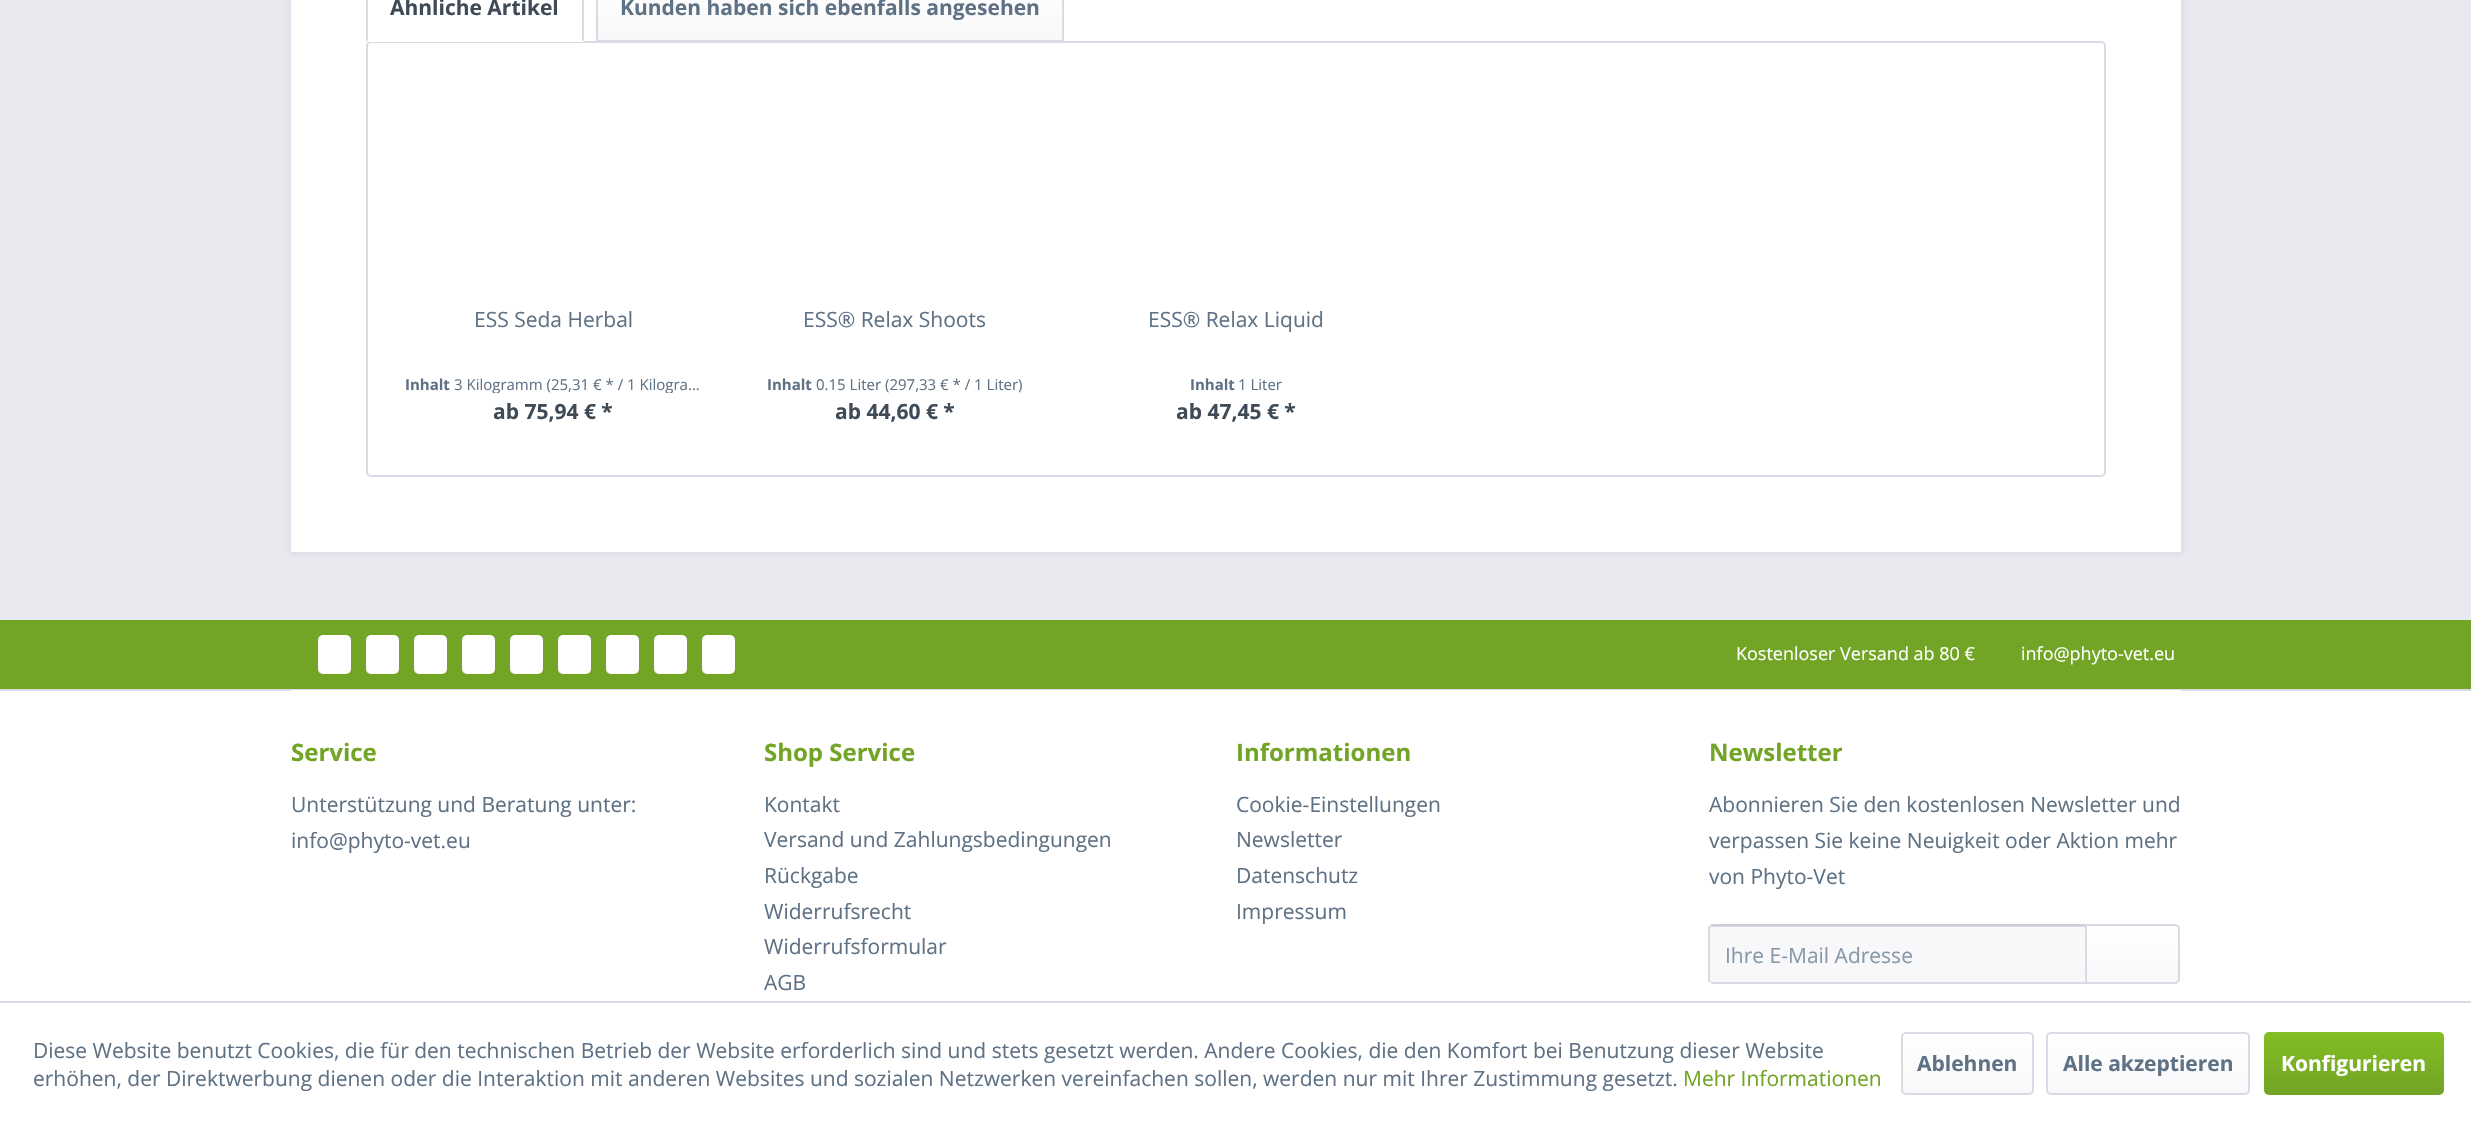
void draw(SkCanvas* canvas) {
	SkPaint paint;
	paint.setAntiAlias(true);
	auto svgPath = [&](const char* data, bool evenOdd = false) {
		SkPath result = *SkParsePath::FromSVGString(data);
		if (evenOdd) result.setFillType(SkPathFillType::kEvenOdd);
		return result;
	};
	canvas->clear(0xffe9e9f0);
	paint.setColor(0xffdadae5);
	paint.setMaskFilter(SkMaskFilter::MakeBlur(kNormal_SkBlurStyle, 3));
	canvas->drawRect(SkRect::MakeXYWH(290, -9, 1893, 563), paint);
	paint.setMaskFilter(nullptr);
	paint.setColor(0xffffffff);
	canvas->drawRect(SkRect::MakeXYWH(291, 0, 1890, 552), paint);
	paint.setStroke(true);
	paint.setStrokeWidth(2);
	paint.setColor(0xffdadae5);
	canvas->drawRoundRect(SkRect::MakeXYWH(367, 42, 1738, 434), 4, 4, paint);
	paint.setStroke(false);
	paint.setColor(0xffffffff);
	canvas->drawRect(SkRect::MakeXYWH(368, 41, 216, 1), paint);
	paint.setColor(0xffdadae5);
	canvas->drawPath(svgPath("M584-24V42L582 40V-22L581-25L582-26Z"), paint);
	paint.setColor(0xffffffff);
	canvas->drawPath(svgPath("M584 42L582 40H368L366 42Z"), paint);
	paint.setColor(0xffdadae5);
	canvas->drawPath(svgPath("M366 42L368 40V-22L369-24L367-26C367-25 366-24 366-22Z"), paint);
	SkFont f1(fontMgr->matchFamilyStyle("Open Sans", SkFontStyle::Bold()), 21);
	f1.setSubpixel(true);
	paint.setColor(0xff3f4c58);
	canvas->drawString("Ähnliche Artikel", 390, 15, f1, paint);
	{
		const SkColor colors[] = {0xffffffff, 0xfff8f8fa};
		const float stops[] = {0, 1};
		const SkPoint ends[] = {{830, -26}, {830, 41}};
		paint.setShader(SkGradientShader::MakeLinear(ends, colors, stops, 2, SkTileMode::kClamp));
		paint.setAlpha(255);
	}
	canvas->drawRect(SkRect::MakeXYWH(598, 0, 464, 40), paint);
	paint.setStroke(true);
	paint.setShader(nullptr);
	paint.setColor(0xffdadae5);
	canvas->drawRect(SkRect::MakeXYWH(597, -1, 466, 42), paint);
	paint.setStroke(false);
	paint.setColor(0xff5f7285);
	canvas->drawString("Kunden haben sich ebenfalls angesehen", 620, 15, f1, paint);
	SkFont f2(fontMgr->matchFamilyStyle("Open Sans", SkFontStyle::Normal()), 21);
	f2.setSubpixel(true);
	canvas->drawString("ESS Seda Herbal", 474, 327, f2, paint);
	SkFont f3(fontMgr->matchFamilyStyle("Open Sans", SkFontStyle::Bold()), 15);
	f3.setSubpixel(true);
	canvas->drawString("Inhalt", 405, 390, f3, paint);
	canvas->save();
	canvas->clipRect(SkRect::MakeXYWH(405, 372, 297, 21));
	SkFont f4(fontMgr->matchFamilyStyle("Open Sans", SkFontStyle::Normal()), 15);
	f4.setSubpixel(true);
	canvas->drawString("3 Kilogramm (25,31 € * / 1 Kilogra…", 454, 390, f4, paint);
	canvas->restore();
	paint.setColor(0xff3f4c58);
	canvas->drawString("ab 75,94 € *", 493, 419, f1, paint);
	paint.setColor(0xff5f7285);
	canvas->drawString("ESS® Relax Shoots", 803, 327, f2, paint);
	canvas->drawString("Inhalt", 767, 390, f3, paint);
	canvas->drawString("0.15 Liter (297,33 € * / 1 Liter)", 816, 390, f4, paint);
	paint.setColor(0xff3f4c58);
	canvas->drawString("ab 44,60 € *", 835, 419, f1, paint);
	paint.setColor(0xff5f7285);
	canvas->drawString("ESS® Relax Liquid", 1148, 327, f2, paint);
	canvas->drawString("Inhalt", 1190, 390, f3, paint);
	canvas->drawString("1 Liter", 1238, 390, f4, paint);
	paint.setColor(0xff3f4c58);
	canvas->drawString("ab 47,45 € *", 1176, 419, f1, paint);
	paint.setColor(0xff72a425);
	canvas->drawRect(SkRect::MakeXYWH(0, 620, 2471, 69), paint);
	paint.setColor(0xffffffff);
	canvas->drawRoundRect(SkRect::MakeXYWH(318, 635, 33, 39), 5, 5, paint);
	canvas->drawRoundRect(SkRect::MakeXYWH(366, 635, 33, 39), 5, 5, paint);
	canvas->drawRoundRect(SkRect::MakeXYWH(414, 635, 33, 39), 5, 5, paint);
	canvas->drawRoundRect(SkRect::MakeXYWH(462, 635, 33, 39), 5, 5, paint);
	canvas->drawRoundRect(SkRect::MakeXYWH(510, 635, 33, 39), 5, 5, paint);
	canvas->drawRoundRect(SkRect::MakeXYWH(558, 635, 33, 39), 5, 5, paint);
	canvas->drawRoundRect(SkRect::MakeXYWH(606, 635, 33, 39), 5, 5, paint);
	canvas->drawRoundRect(SkRect::MakeXYWH(654, 635, 33, 39), 5, 5, paint);
	canvas->drawRoundRect(SkRect::MakeXYWH(702, 635, 33, 39), 5, 5, paint);
	SkFont f5(fontMgr->matchFamilyStyle("Open Sans", SkFontStyle::Normal()), 18);
	f5.setSubpixel(true);
	canvas->drawString("Kostenloser Versand ab 80 €", 1736, 660, f5, paint);
	canvas->drawString("info@phyto-vet.eu", 2021, 660, f5, paint);
	canvas->drawRect(SkRect::MakeXYWH(0, 691, 2471, 310), paint);
	paint.setColor(0xffdadae5);
	canvas->drawRect(SkRect::MakeXYWH(0, 689, 2471, 2), paint);
	paint.setColor(0xffffffff);
	canvas->drawRect(SkRect::MakeXYWH(291, 690, 1890, 1), paint);
	SkFont f6(fontMgr->matchFamilyStyle("Open Sans", SkFontStyle::Bold()), 24);
	f6.setSubpixel(true);
	paint.setColor(0xff72a425);
	canvas->drawString("Service", 291, 761, f6, paint);
	paint.setColor(0xff5f7285);
	canvas->drawString("Unterstützung und Beratung unter:", 291, 812, f2, paint);
	canvas->drawString("info@phyto-vet.eu", 291, 848, f2, paint);
	paint.setColor(0xff72a425);
	canvas->drawString("Shop Service", 764, 761, f6, paint);
	paint.setColor(0xff5f7285);
	canvas->drawString("Kontakt", 764, 812, f2, paint);
	canvas->drawString("Versand und Zahlungsbedingungen", 764, 847, f2, paint);
	canvas->drawString("Rückgabe", 764, 883, f2, paint);
	canvas->drawString("Widerrufsrecht", 764, 919, f2, paint);
	canvas->drawString("Widerrufsformular", 764, 954, f2, paint);
	canvas->drawString("AGB", 764, 990, f2, paint);
	paint.setColor(0xff72a425);
	canvas->drawString("Informationen", 1236, 761, f6, paint);
	paint.setColor(0xff5f7285);
	canvas->drawString("Cookie-Einstellungen", 1236, 812, f2, paint);
	canvas->drawString("Newsletter", 1236, 847, f2, paint);
	canvas->drawString("Datenschutz", 1236, 883, f2, paint);
	canvas->drawString("Impressum", 1236, 919, f2, paint);
	paint.setColor(0xff72a425);
	canvas->drawString("Newsletter", 1709, 761, f6, paint);
	paint.setColor(0xff5f7285);
	canvas->drawString("Abonnieren Sie den kostenlosen Newsletter und", 1709, 812, f2, paint);
	canvas->drawString("verpassen Sie keine Neuigkeit oder Aktion mehr", 1709, 848, f2, paint);
	canvas->drawString("von Phyto-Vet", 1709, 884, f2, paint);
	paint.setColor(0xfff8f8fa);
	canvas->drawPath(svgPath("M1713 926H2085V983H1713C1711.5 983 1710 981.5 1710 980V929C1710 927.5 1711.5 926 1713 926Z"), paint);
	paint.setColor(0xffdadae5);
	canvas->drawPath(svgPath("M1713 927H2085V926H1713C1711 926 1710 927 1710 929V930C1710 928 1711 927 1713 927Z"), paint);
	paint.setColor(0xffcbcbdb);
	canvas->drawPath(svgPath("M1713 924L1710 925L1711 926H1713H2084L2086 924Z"), paint);
	paint.setColor(0xffdadae5);
	canvas->drawPath(svgPath("M2086 924V984L2084 982H2085V926H2084Z"), paint);
	canvas->drawPath(svgPath("M1713 984H2086L2084 982H1713H1711L1710 983Z"), paint);
	canvas->drawPath(svgPath("M1708 927L1710 925L1711 926L1710 928V980L1711 982L1710 983L1708 981Z"), paint);
	paint.setColor(0xff8798a9);
	canvas->drawString("Ihre E-Mail Adresse", 1725, 963, f2, paint);
	{
		const SkColor colors[] = {0xffffffff, 0xfff8f8fa};
		const float stops[] = {0, 1};
		const SkPoint ends[] = {{2132, 926}, {2132, 983}};
		paint.setShader(SkGradientShader::MakeLinear(ends, colors, stops, 2, SkTileMode::kClamp));
		paint.setAlpha(255);
	}
	canvas->drawPath(svgPath("M2087 926H2175C2176.5 926 2178 927.5 2178 929V980C2178 981.5 2176.5 983 2175 983H2087Z"), paint);
	paint.setStroke(true);
	paint.setShader(nullptr);
	paint.setColor(0xffdadae5);
	canvas->drawPath(svgPath("M2086 925H2175C2177 925 2179 927 2179 929V979C2179 981 2177 983 2175 983H2086Z"), paint);
	paint.setStroke(false);
	paint.setColor(0xffffffff);
	canvas->drawRect(SkRect::MakeXYWH(0, 1003, 2471, 121), paint);
	paint.setColor(0xffdadae5);
	canvas->drawRect(SkRect::MakeXYWH(0, 1001, 2471, 2), paint);
	paint.setColor(0xff5f7285);
	canvas->drawString("Diese Website benutzt Cookies, die für den technischen Betrieb der Website erforderlich sind und stets gesetzt werden. Andere Cookies, die den Komfort bei Benutzung dieser Website", 33, 1058, f2, paint);
	canvas->drawString("erhöhen, der Direktwerbung dienen oder die Interaktion mit anderen Websites und sozialen Netzwerken vereinfachen sollen, werden nur mit Ihrer Zustimmung gesetzt.", 33, 1086, f2, paint);
	paint.setColor(0xff72a425);
	canvas->drawString("Mehr Informationen", 1683, 1086, f2, paint);
	{
		const SkColor colors[] = {0xffffffff, 0xfff8f8fa};
		const float stops[] = {0, 1};
		const SkPoint ends[] = {{1967, 1034}, {1967, 1094}};
		paint.setShader(SkGradientShader::MakeLinear(ends, colors, stops, 2, SkTileMode::kClamp));
		paint.setAlpha(255);
	}
	canvas->drawRoundRect(SkRect::MakeXYWH(1902, 1034, 131, 60), 3, 3, paint);
	paint.setStroke(true);
	paint.setShader(nullptr);
	paint.setColor(0xffdadae5);
	canvas->drawRoundRect(SkRect::MakeXYWH(1902, 1033, 131, 61), 4, 4, paint);
	paint.setStroke(false);
	paint.setColor(0xff5f7285);
	canvas->drawString("Ablehnen", 1917, 1071, f1, paint);
	{
		const SkColor colors[] = {0xffffffff, 0xfff8f8fa};
		const float stops[] = {0, 1};
		const SkPoint ends[] = {{2148, 1034}, {2148, 1094}};
		paint.setShader(SkGradientShader::MakeLinear(ends, colors, stops, 2, SkTileMode::kClamp));
		paint.setAlpha(255);
	}
	canvas->drawRoundRect(SkRect::MakeXYWH(2048, 1034, 201, 60), 3, 3, paint);
	paint.setStroke(true);
	paint.setShader(nullptr);
	paint.setColor(0xffdadae5);
	canvas->drawRoundRect(SkRect::MakeXYWH(2047, 1033, 202, 61), 4, 4, paint);
	paint.setStroke(false);
	paint.setColor(0xff5f7285);
	canvas->drawString("Alle akzeptieren", 2063, 1071, f1, paint);
	{
		const SkColor colors[] = {0xff82be24, 0xff72a425};
		const float stops[] = {0, 1};
		const SkPoint ends[] = {{2354, 1032}, {2354, 1095}};
		paint.setShader(SkGradientShader::MakeLinear(ends, colors, stops, 2, SkTileMode::kClamp));
		paint.setAlpha(255);
	}
	canvas->drawRoundRect(SkRect::MakeXYWH(2264, 1032, 180, 63), 5, 5, paint);
	paint.setShader(nullptr);
	paint.setColor(0xffffffff);
	canvas->drawString("Konfigurieren", 2281, 1071, f1, paint);
}
